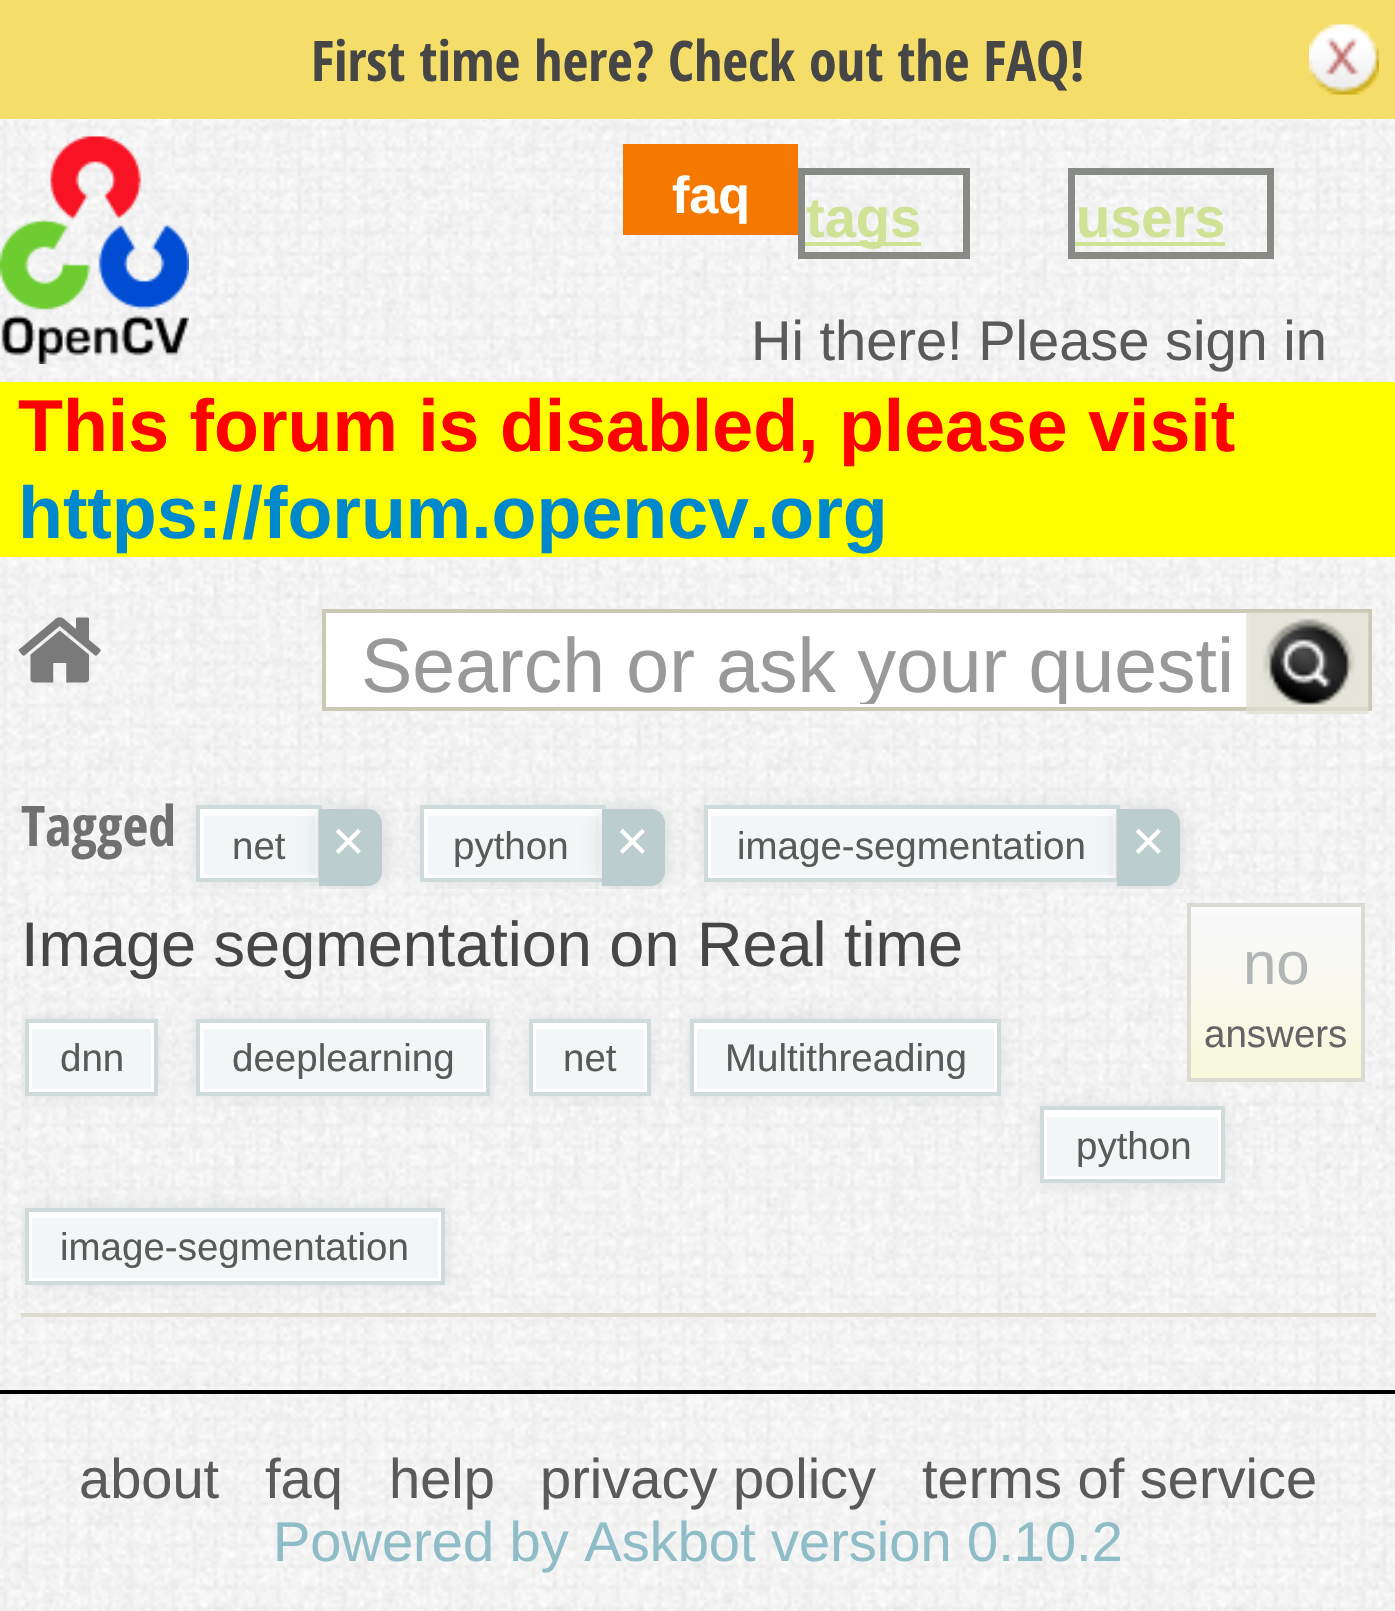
void draw(SkCanvas* canvas) {
	SkPaint paint;
	paint.setAntiAlias(true);
	auto svgPath = [&](const char* data, bool evenOdd = false) {
		SkPath result = *SkParsePath::FromSVGString(data);
		if (evenOdd) result.setFillType(SkPathFillType::kEvenOdd);
		return result;
	};
	canvas->clear(0xffffffff);
	canvas->drawImageRect(SkImages::DeferredFromEncodedData(SkData::MakeFromFileName("img1.png")), SkRect::MakeXYWH(0, 557, 1395, 833), SkSamplingOptions());
	paint.setColor(0xfff5dd69);
	canvas->drawRect(SkRect::MakeXYWH(0, 0, 1395, 119), paint);
	SkFont f1(fontMgr->matchFamilyStyle("Open Sans Condensed", SkFontStyle::Bold()), 56);
	f1.setSubpixel(true);
	paint.setColor(0xff464646);
	canvas->drawString("First time here? Check out the FAQ!", 311, 81, f1, paint);
	canvas->drawImageRect(SkImages::DeferredFromEncodedData(SkData::MakeFromFileName("img2.png")), SkRect::MakeXYWH(1309, 24, 70, 71), SkSamplingOptions());
	canvas->drawImageRect(SkImages::DeferredFromEncodedData(SkData::MakeFromFileName("img3.png")), SkRect::MakeXYWH(0, 119, 1395, 263), SkSamplingOptions());
	canvas->drawImageRect(SkImages::DeferredFromEncodedData(SkData::MakeFromFileName("img4.png")), SkRect::MakeXYWH(0, 136, 189, 228), SkSamplingOptions());
	paint.setColor(0xfff57900);
	canvas->drawRect(SkRect::MakeXYWH(623, 144, 175, 91), paint);
	SkFont f2(fontMgr->matchFamilyStyle("Liberation Sans", SkFontStyle::Bold()), 52);
	f2.setSubpixel(true);
	paint.setColor(0xfffffffe);
	canvas->drawString("faq", 672, 213, f2, paint);
	paint.setStroke(true);
	paint.setStrokeWidth(7);
	paint.setColor(0xff888a85);
	canvas->drawRect(SkRect::MakeXYWH(801.5, 171.5, 165, 84), paint);
	paint.setStroke(false);
	paint.setColor(0xffd0e296);
	canvas->drawRect(SkRect::MakeXYWH(805, 242, 116, 4), paint);
	SkFont f3(fontMgr->matchFamilyStyle("Liberation Sans", SkFontStyle::Bold()), 56);
	f3.setSubpixel(true);
	canvas->drawString("tags", 806, 237, f3, paint);
	paint.setStroke(true);
	paint.setColor(0xff888a85);
	canvas->drawRect(SkRect::MakeXYWH(1071.5, 171.5, 199, 84), paint);
	paint.setStroke(false);
	paint.setColor(0xffd0e296);
	canvas->drawString("users", 1076, 237, f3, paint);
	canvas->drawRect(SkRect::MakeXYWH(1075, 242, 150, 4), paint);
	SkFont f4(fontMgr->matchFamilyStyle("Liberation Sans", SkFontStyle::Normal()), 56);
	f4.setSubpixel(true);
	paint.setColor(0xff5a5a5a);
	canvas->drawString("Hi there! Please sign in", 751, 360, f4, paint);
	paint.setColor(0xffffff00);
	canvas->drawRect(SkRect::MakeXYWH(0, 382, 1395, 175), paint);
	SkFont f5(fontMgr->matchFamilyStyle("Liberation Sans", SkFontStyle::Bold()), 73.5);
	f5.setSubpixel(true);
	paint.setColor(0xffff0000);
	canvas->drawString("This forum is disabled, please visit", 18, 451, f5, paint);
	paint.setColor(0xff0088cc);
	canvas->drawString("https://forum.opencv.org", 18, 538, f5, paint);
	canvas->drawImageRect(SkImages::DeferredFromEncodedData(SkData::MakeFromFileName("img5.png")), SkRect::MakeXYWH(18, 617, 83, 66), SkSamplingOptions());
	paint.setColor(0xffffffff);
	canvas->drawRect(SkRect::MakeXYWH(324, 611, 1046, 98), paint);
	paint.setStroke(true);
	paint.setStrokeWidth(4);
	paint.setColor(0xffc9c9b5);
	canvas->drawRect(SkRect::MakeXYWH(324, 611, 1046, 98), paint);
	canvas->save();
	canvas->clipRect(SkRect::MakeXYWH(361, 623, 962, 81));
	SkFont f6(fontMgr->matchFamilyStyle("Liberation Sans", SkFontStyle::Normal()), 77);
	f6.setSubpixel(true);
	paint.setStroke(false);
	paint.setColor(0xff999999);
	canvas->drawString("Search or ask your questi", 361, 692, f6, paint);
	canvas->restore();
	canvas->drawImageRect(SkImages::DeferredFromEncodedData(SkData::MakeFromFileName("img6.png")), SkRect::MakeXYWH(1246, 612, 123, 102), SkSamplingOptions());
	paint.setColor(0xff707070);
	canvas->drawString("Tagged", 21, 846, f1, paint);
	paint.setColor(0xffd3d6d7);
	paint.setMaskFilter(SkMaskFilter::MakeBlur(kNormal_SkBlurStyle, 9));
	canvas->drawRect(SkRect::MakeXYWH(200, 809, 119, 70), paint);
	paint.setMaskFilter(nullptr);
	paint.setColor(0xfff3f6f6);
	canvas->drawRect(SkRect::MakeXYWH(204, 816, 111, 59), paint);
	paint.setColor(0xffffffff);
	canvas->drawRect(SkRect::MakeXYWH(200, 809, 119, 7), paint);
	canvas->drawRect(SkRect::MakeXYWH(315, 809, 3, 70), paint);
	canvas->drawRect(SkRect::MakeXYWH(200, 875, 119, 3), paint);
	canvas->drawRect(SkRect::MakeXYWH(200, 809, 4, 70), paint);
	paint.setStroke(true);
	paint.setColor(0xffcfdbdb);
	canvas->drawRect(SkRect::MakeXYWH(198, 807, 122, 73), paint);
	SkFont f7(fontMgr->matchFamilyStyle("Liberation Sans", SkFontStyle::Normal()), 38.5);
	f7.setSubpixel(true);
	paint.setStroke(false);
	paint.setColor(0xff5a5a5a);
	canvas->drawString("net", 232, 859, f7, paint);
	paint.setColor(0xffd3d6d7);
	paint.setMaskFilter(SkMaskFilter::MakeBlur(kNormal_SkBlurStyle, 9));
	canvas->drawRoundRect(SkRect::MakeXYWH(319, 809, 63, 77), 14, 14, paint);
	paint.setMaskFilter(nullptr);
	paint.setColor(0xffbbcdcd);
	canvas->drawPath(svgPath("M319 809H368C375.5 809 382 815.5 382 823V872C382 879.5 375.5 886 368 886H319Z"), paint);
	paint.setColor(0xfffffffe);
	canvas->drawString("×", 332, 860, f4, paint);
	paint.setColor(0xffd3d6d7);
	paint.setMaskFilter(SkMaskFilter::MakeBlur(kNormal_SkBlurStyle, 9));
	canvas->drawRect(SkRect::MakeXYWH(424, 809, 178, 70), paint);
	paint.setMaskFilter(nullptr);
	paint.setColor(0xfff3f6f6);
	canvas->drawRect(SkRect::MakeXYWH(428, 816, 171, 59), paint);
	paint.setColor(0xffffffff);
	canvas->drawRect(SkRect::MakeXYWH(424, 809, 178, 7), paint);
	canvas->drawRect(SkRect::MakeXYWH(599, 809, 3, 70), paint);
	canvas->drawRect(SkRect::MakeXYWH(424, 875, 178, 3), paint);
	canvas->drawRect(SkRect::MakeXYWH(424, 809, 4, 70), paint);
	paint.setStroke(true);
	paint.setColor(0xffcfdbdb);
	canvas->drawRect(SkRect::MakeXYWH(422, 807, 182, 73), paint);
	paint.setStroke(false);
	paint.setColor(0xff5a5a5a);
	canvas->drawString("python", 453, 859, f7, paint);
	paint.setColor(0xffd3d6d7);
	paint.setMaskFilter(SkMaskFilter::MakeBlur(kNormal_SkBlurStyle, 9));
	canvas->drawRoundRect(SkRect::MakeXYWH(602, 809, 63, 77), 14, 14, paint);
	paint.setMaskFilter(nullptr);
	paint.setColor(0xffbbcdcd);
	canvas->drawPath(svgPath("M602 809H651C658.5 809 665 815.5 665 823V872C665 879.5 658.5 886 651 886H602Z"), paint);
	paint.setColor(0xfffffffe);
	canvas->drawString("×", 616, 860, f4, paint);
	paint.setColor(0xffd3d6d7);
	paint.setMaskFilter(SkMaskFilter::MakeBlur(kNormal_SkBlurStyle, 9));
	canvas->drawRect(SkRect::MakeXYWH(707, 809, 410, 70), paint);
	paint.setMaskFilter(nullptr);
	paint.setColor(0xfff3f6f6);
	canvas->drawRect(SkRect::MakeXYWH(711, 816, 402, 59), paint);
	paint.setColor(0xffffffff);
	canvas->drawRect(SkRect::MakeXYWH(707, 809, 410, 7), paint);
	canvas->drawRect(SkRect::MakeXYWH(1113, 809, 3, 70), paint);
	canvas->drawRect(SkRect::MakeXYWH(707, 875, 410, 3), paint);
	canvas->drawRect(SkRect::MakeXYWH(708, 809, 3, 70), paint);
	paint.setStroke(true);
	paint.setColor(0xffcfdbdb);
	canvas->drawRect(SkRect::MakeXYWH(706, 807, 412, 73), paint);
	paint.setStroke(false);
	paint.setColor(0xff5a5a5a);
	canvas->drawString("image-segmentation", 737, 859, f7, paint);
	paint.setColor(0xffd3d6d7);
	paint.setMaskFilter(SkMaskFilter::MakeBlur(kNormal_SkBlurStyle, 9));
	canvas->drawRoundRect(SkRect::MakeXYWH(1117, 809, 63, 77), 14, 14, paint);
	paint.setMaskFilter(nullptr);
	paint.setColor(0xffbbcdcd);
	canvas->drawPath(svgPath("M1117 809H1166C1173.5 809 1180 815.5 1180 823V872C1180 879.5 1173.5 886 1166 886H1117Z"), paint);
	paint.setColor(0xfffffffe);
	canvas->drawString("×", 1132, 860, f4, paint);
	canvas->drawImageRect(SkImages::DeferredFromEncodedData(SkData::MakeFromFileName("img7.png")), SkRect::MakeXYWH(21, 889, 1355, 431), SkSamplingOptions());
	paint.setColor(0xffdddbce);
	canvas->drawRect(SkRect::MakeXYWH(21, 1313, 1355, 4), paint);
	SkFont f8(fontMgr->matchFamilyStyle("Liberation Sans", SkFontStyle::Normal()), 63);
	f8.setSubpixel(true);
	paint.setColor(0xff464646);
	canvas->drawString("Image segmentation on Real time", 21, 966, f8, paint);
	canvas->drawImageRect(SkImages::DeferredFromEncodedData(SkData::MakeFromFileName("img8.png")), SkRect::MakeXYWH(1186, 906, 175, 176), SkSamplingOptions());
	paint.setStroke(true);
	paint.setColor(0xffdbdbd4);
	canvas->drawRect(SkRect::MakeXYWH(1189, 905, 174, 175), paint);
	SkFont f9(fontMgr->matchFamilyStyle("Liberation Sans", SkFontStyle::Normal()), 60);
	f9.setSubpixel(true);
	paint.setStroke(false);
	paint.setColor(0xffb1b5b6);
	canvas->drawString("no", 1243, 984, f9, paint);
	paint.setColor(0xff646464);
	canvas->drawString("answers", 1204, 1047, f7, paint);
	canvas->save();
	canvas->clipRect(SkRect::MakeXYWH(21, 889, 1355, 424));
	paint.setColor(0xffd3d6d7);
	paint.setMaskFilter(SkMaskFilter::MakeBlur(kNormal_SkBlurStyle, 9));
	canvas->drawRect(SkRect::MakeXYWH(28, 1022, 126, 70), paint);
	paint.setMaskFilter(nullptr);
	canvas->restore();
	paint.setColor(0xfff3f6f6);
	canvas->drawRect(SkRect::MakeXYWH(32, 1029, 119, 60), paint);
	paint.setColor(0xffffffff);
	canvas->drawRect(SkRect::MakeXYWH(28, 1023, 126, 6), paint);
	canvas->drawRect(SkRect::MakeXYWH(151, 1022, 3, 70), paint);
	canvas->drawRect(SkRect::MakeXYWH(28, 1089, 126, 3), paint);
	canvas->drawRect(SkRect::MakeXYWH(29, 1022, 3, 70), paint);
	paint.setStroke(true);
	paint.setColor(0xffcfdbdb);
	canvas->drawRect(SkRect::MakeXYWH(27, 1021, 129, 73), paint);
	paint.setStroke(false);
	paint.setColor(0xff5a5a5a);
	canvas->drawString("dnn", 60, 1071, f7, paint);
	paint.setColor(0xffd3d6d7);
	paint.setMaskFilter(SkMaskFilter::MakeBlur(kNormal_SkBlurStyle, 9));
	canvas->drawRect(SkRect::MakeXYWH(200, 1022, 287, 70), paint);
	paint.setMaskFilter(nullptr);
	paint.setColor(0xfff3f6f6);
	canvas->drawRect(SkRect::MakeXYWH(204, 1029, 279, 60), paint);
	paint.setColor(0xffffffff);
	canvas->drawRect(SkRect::MakeXYWH(200, 1023, 287, 6), paint);
	canvas->drawRect(SkRect::MakeXYWH(483, 1022, 3, 70), paint);
	canvas->drawRect(SkRect::MakeXYWH(200, 1089, 287, 3), paint);
	canvas->drawRect(SkRect::MakeXYWH(200, 1022, 4, 70), paint);
	paint.setStroke(true);
	paint.setColor(0xffcfdbdb);
	canvas->drawRect(SkRect::MakeXYWH(198, 1021, 290, 73), paint);
	paint.setStroke(false);
	paint.setColor(0xff5a5a5a);
	canvas->drawString("deeplearning", 232, 1071, f7, paint);
	paint.setColor(0xffd3d6d7);
	paint.setMaskFilter(SkMaskFilter::MakeBlur(kNormal_SkBlurStyle, 9));
	canvas->drawRect(SkRect::MakeXYWH(532, 1022, 116, 70), paint);
	paint.setMaskFilter(nullptr);
	paint.setColor(0xfff3f6f6);
	canvas->drawRect(SkRect::MakeXYWH(536, 1029, 108, 60), paint);
	paint.setColor(0xffffffff);
	canvas->drawRect(SkRect::MakeXYWH(532, 1023, 116, 6), paint);
	canvas->drawRect(SkRect::MakeXYWH(644, 1022, 3, 70), paint);
	canvas->drawRect(SkRect::MakeXYWH(532, 1089, 116, 3), paint);
	canvas->drawRect(SkRect::MakeXYWH(533, 1022, 3, 70), paint);
	paint.setStroke(true);
	paint.setColor(0xffcfdbdb);
	canvas->drawRect(SkRect::MakeXYWH(531, 1021, 118, 73), paint);
	paint.setStroke(false);
	paint.setColor(0xff5a5a5a);
	canvas->drawString("net", 563, 1071, f7, paint);
	paint.setColor(0xffd3d6d7);
	paint.setMaskFilter(SkMaskFilter::MakeBlur(kNormal_SkBlurStyle, 9));
	canvas->drawRect(SkRect::MakeXYWH(693, 1022, 305, 70), paint);
	paint.setMaskFilter(nullptr);
	paint.setColor(0xfff3f6f6);
	canvas->drawRect(SkRect::MakeXYWH(697, 1029, 297, 60), paint);
	paint.setColor(0xffffffff);
	canvas->drawRect(SkRect::MakeXYWH(693, 1023, 305, 6), paint);
	canvas->drawRect(SkRect::MakeXYWH(994, 1022, 3, 70), paint);
	canvas->drawRect(SkRect::MakeXYWH(693, 1089, 305, 3), paint);
	canvas->drawRect(SkRect::MakeXYWH(694, 1022, 3, 70), paint);
	paint.setStroke(true);
	paint.setColor(0xffcfdbdb);
	canvas->drawRect(SkRect::MakeXYWH(692, 1021, 307, 73), paint);
	paint.setStroke(false);
	paint.setColor(0xff5a5a5a);
	canvas->drawString("Multithreading", 725, 1071, f7, paint);
	paint.setColor(0xffd3d6d7);
	paint.setMaskFilter(SkMaskFilter::MakeBlur(kNormal_SkBlurStyle, 9));
	canvas->drawRect(SkRect::MakeXYWH(1043, 1110, 179, 70), paint);
	paint.setMaskFilter(nullptr);
	paint.setColor(0xfff3f6f6);
	canvas->drawRect(SkRect::MakeXYWH(1047, 1117, 171, 59), paint);
	paint.setColor(0xffffffff);
	canvas->drawRect(SkRect::MakeXYWH(1043, 1110, 179, 7), paint);
	canvas->drawRect(SkRect::MakeXYWH(1218, 1110, 3, 70), paint);
	canvas->drawRect(SkRect::MakeXYWH(1043, 1176, 179, 3), paint);
	canvas->drawRect(SkRect::MakeXYWH(1044, 1110, 3, 70), paint);
	paint.setStroke(true);
	paint.setColor(0xffcfdbdb);
	canvas->drawRect(SkRect::MakeXYWH(1042, 1108, 181, 73), paint);
	paint.setStroke(false);
	paint.setColor(0xff5a5a5a);
	canvas->drawString("python", 1076, 1159, f7, paint);
	canvas->save();
	canvas->clipRect(SkRect::MakeXYWH(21, 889, 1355, 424));
	paint.setColor(0xffd3d6d7);
	paint.setMaskFilter(SkMaskFilter::MakeBlur(kNormal_SkBlurStyle, 9));
	canvas->drawRect(SkRect::MakeXYWH(28, 1211, 413, 70), paint);
	paint.setMaskFilter(nullptr);
	canvas->restore();
	paint.setColor(0xfff3f6f6);
	canvas->drawRect(SkRect::MakeXYWH(32, 1218, 406, 60), paint);
	paint.setColor(0xffffffff);
	canvas->drawRect(SkRect::MakeXYWH(28, 1212, 413, 6), paint);
	canvas->drawRect(SkRect::MakeXYWH(438, 1211, 3, 70), paint);
	canvas->drawRect(SkRect::MakeXYWH(28, 1278, 413, 3), paint);
	canvas->drawRect(SkRect::MakeXYWH(29, 1211, 3, 70), paint);
	paint.setStroke(true);
	paint.setColor(0xffcfdbdb);
	canvas->drawRect(SkRect::MakeXYWH(27, 1210, 416, 73), paint);
	paint.setStroke(false);
	paint.setColor(0xff5a5a5a);
	canvas->drawString("image-segmentation", 60, 1260, f7, paint);
	canvas->drawImageRect(SkImages::DeferredFromEncodedData(SkData::MakeFromFileName("img9.png")), SkRect::MakeXYWH(0, 1389, 1395, 222), SkSamplingOptions());
	paint.setColor(0xff000000);
	canvas->drawRect(SkRect::MakeXYWH(0, 1390, 1395, 4), paint);
	paint.setColor(0xff5a5a5a);
	canvas->drawString("about", 79, 1498, f4, paint);
	canvas->drawString("faq", 265, 1498, f4, paint);
	canvas->drawString("help", 389, 1498, f4, paint);
	canvas->drawString("privacy policy", 540, 1498, f4, paint);
	canvas->drawString("terms of service", 922, 1498, f4, paint);
	paint.setColor(0xff8ebcc7);
	canvas->drawString("Powered by Askbot version 0.10.2", 273, 1561, f4, paint);
}
